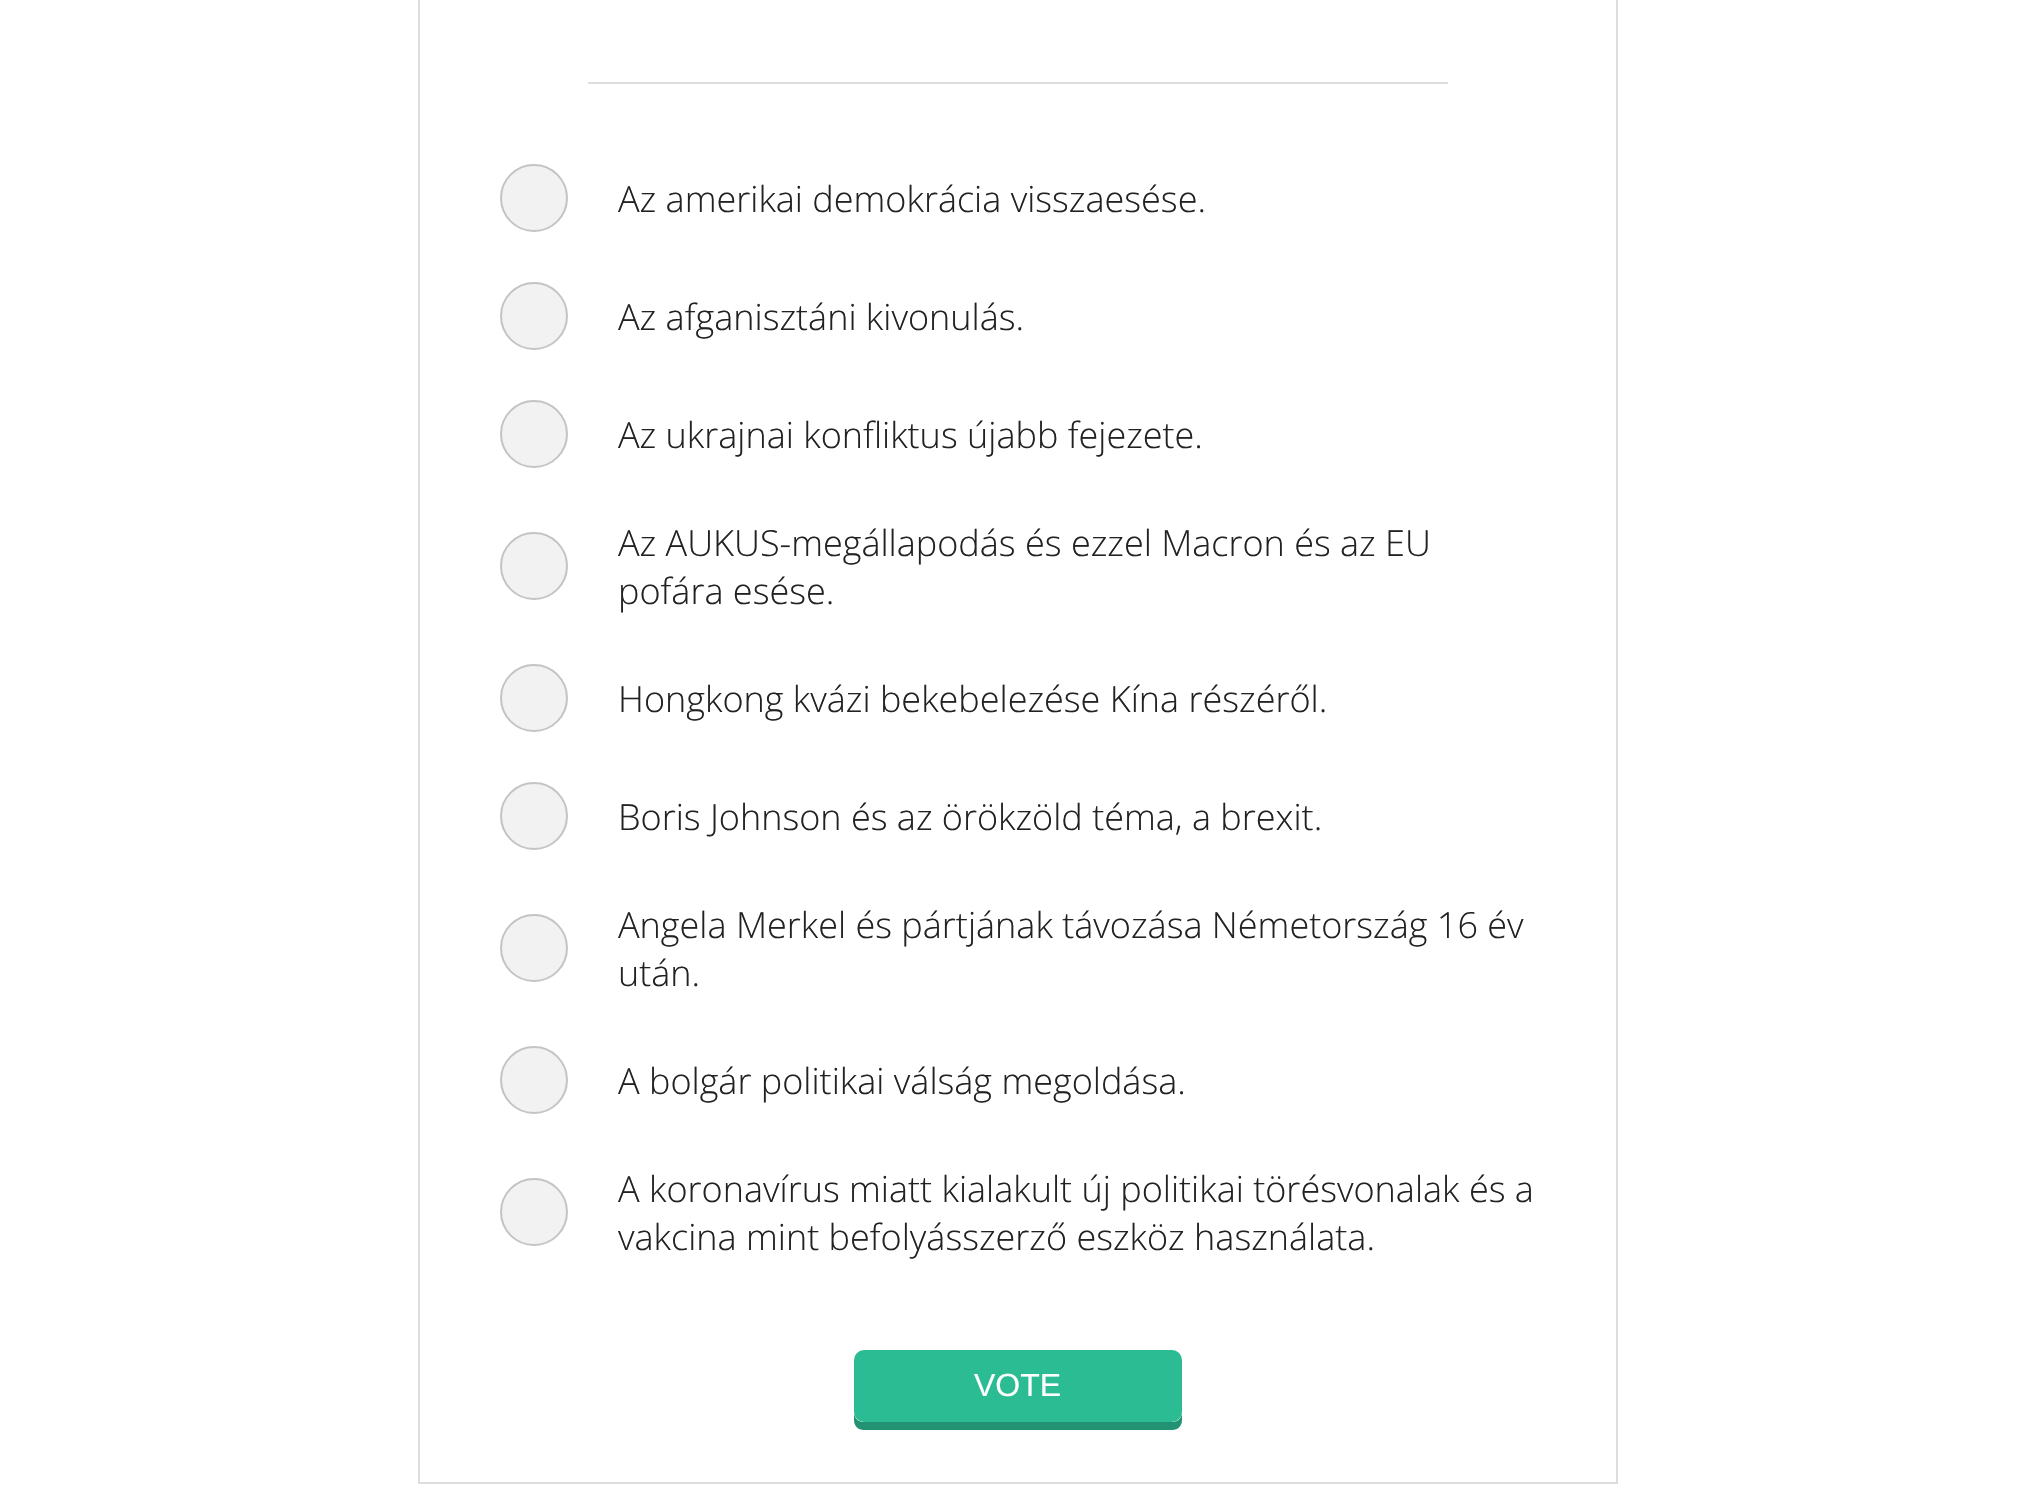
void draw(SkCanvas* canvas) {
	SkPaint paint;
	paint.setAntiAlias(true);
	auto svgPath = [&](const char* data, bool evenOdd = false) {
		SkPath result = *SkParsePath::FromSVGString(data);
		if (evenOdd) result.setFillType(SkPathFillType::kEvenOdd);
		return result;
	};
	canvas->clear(0xffffffff);
	paint.setStroke(true);
	paint.setStrokeWidth(2);
	paint.setColor(0xffdddddd);
	canvas->drawRect(SkRect::MakeXYWH(419, -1, 1198, 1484), paint);
	paint.setStroke(false);
	canvas->drawRect(SkRect::MakeXYWH(588, 82, 860, 2), paint);
	paint.setColor(0xfff2f2f2);
	canvas->drawCircle(534, 198, 33, paint);
	paint.setStroke(true);
	paint.setColor(0xffc4c4c4);
	canvas->drawCircle(534, 198, 33, paint);
	SkFont f1(fontMgr->matchFamilyStyle("Open Sans", SkFontStyle(300, SkFontStyle::kNormal_Width, SkFontStyle::kUpright_Slant)), 36);
	f1.setSubpixel(true);
	paint.setStroke(false);
	paint.setColor(0xff222222);
	canvas->drawString("Az amerikai demokrácia visszaesése.", 618, 212, f1, paint);
	paint.setColor(0xfff2f2f2);
	canvas->drawCircle(534, 316, 33, paint);
	paint.setStroke(true);
	paint.setColor(0xffc4c4c4);
	canvas->drawCircle(534, 316, 33, paint);
	paint.setStroke(false);
	paint.setColor(0xff222222);
	canvas->drawString("Az afganisztáni kivonulás.", 618, 330, f1, paint);
	paint.setColor(0xfff2f2f2);
	canvas->drawCircle(534, 434, 33, paint);
	paint.setStroke(true);
	paint.setColor(0xffc4c4c4);
	canvas->drawCircle(534, 434, 33, paint);
	paint.setStroke(false);
	paint.setColor(0xff222222);
	canvas->drawString("Az ukrajnai konfliktus újabb fejezete.", 618, 448, f1, paint);
	paint.setColor(0xfff2f2f2);
	canvas->drawCircle(534, 566, 33, paint);
	paint.setStroke(true);
	paint.setColor(0xffc4c4c4);
	canvas->drawCircle(534, 566, 33, paint);
	paint.setStroke(false);
	paint.setColor(0xff222222);
	canvas->drawString("Az AUKUS-megállapodás és ezzel Macron és az EU", 618, 556, f1, paint);
	canvas->drawString("pofára esése.", 618, 604, f1, paint);
	paint.setColor(0xfff2f2f2);
	canvas->drawCircle(534, 698, 33, paint);
	paint.setStroke(true);
	paint.setColor(0xffc4c4c4);
	canvas->drawCircle(534, 698, 33, paint);
	paint.setStroke(false);
	paint.setColor(0xff222222);
	canvas->drawString("Hongkong kvázi bekebelezése Kína részéről.", 618, 712, f1, paint);
	paint.setColor(0xfff2f2f2);
	canvas->drawCircle(534, 816, 33, paint);
	paint.setStroke(true);
	paint.setColor(0xffc4c4c4);
	canvas->drawCircle(534, 816, 33, paint);
	paint.setStroke(false);
	paint.setColor(0xff222222);
	canvas->drawString("Boris Johnson és az örökzöld téma, a brexit.", 618, 830, f1, paint);
	paint.setColor(0xfff2f2f2);
	canvas->drawCircle(534, 948, 33, paint);
	paint.setStroke(true);
	paint.setColor(0xffc4c4c4);
	canvas->drawCircle(534, 948, 33, paint);
	paint.setStroke(false);
	paint.setColor(0xff222222);
	canvas->drawString("Angela Merkel és pártjának távozása Németország 16 év", 618, 938, f1, paint);
	canvas->drawString("után.", 618, 986, f1, paint);
	paint.setColor(0xfff2f2f2);
	canvas->drawCircle(534, 1080, 33, paint);
	paint.setStroke(true);
	paint.setColor(0xffc4c4c4);
	canvas->drawCircle(534, 1080, 33, paint);
	paint.setStroke(false);
	paint.setColor(0xff222222);
	canvas->drawString("A bolgár politikai válság megoldása.", 618, 1094, f1, paint);
	paint.setColor(0xfff2f2f2);
	canvas->drawCircle(534, 1212, 33, paint);
	paint.setStroke(true);
	paint.setColor(0xffc4c4c4);
	canvas->drawCircle(534, 1212, 33, paint);
	paint.setStroke(false);
	paint.setColor(0xff222222);
	canvas->drawString("A koronavírus miatt kialakult új politikai törésvonalak és a", 618, 1202, f1, paint);
	canvas->drawString("vakcina mint befolyásszerző eszköz használata.", 618, 1250, f1, paint);
	paint.setColor(0xff229273);
	canvas->drawPath(svgPath("M854 1412V1420C854 1426 858 1430 864 1430H1172C1178 1430 1182 1426 1182 1420V1412C1182 1418 1178 1422 1172 1422H864C858 1422 854 1418 854 1412Z"), paint);
	paint.setColor(0xff2bbc94);
	canvas->drawRoundRect(SkRect::MakeXYWH(854, 1350, 328, 72), 10, 10, paint);
	SkFont f2(fontMgr->matchFamilyStyle("Liberation Sans", SkFontStyle::Normal()), 32);
	f2.setSubpixel(true);
	paint.setColor(0xffffffff);
	canvas->drawString("VOTE", 974, 1396, f2, paint);
}
